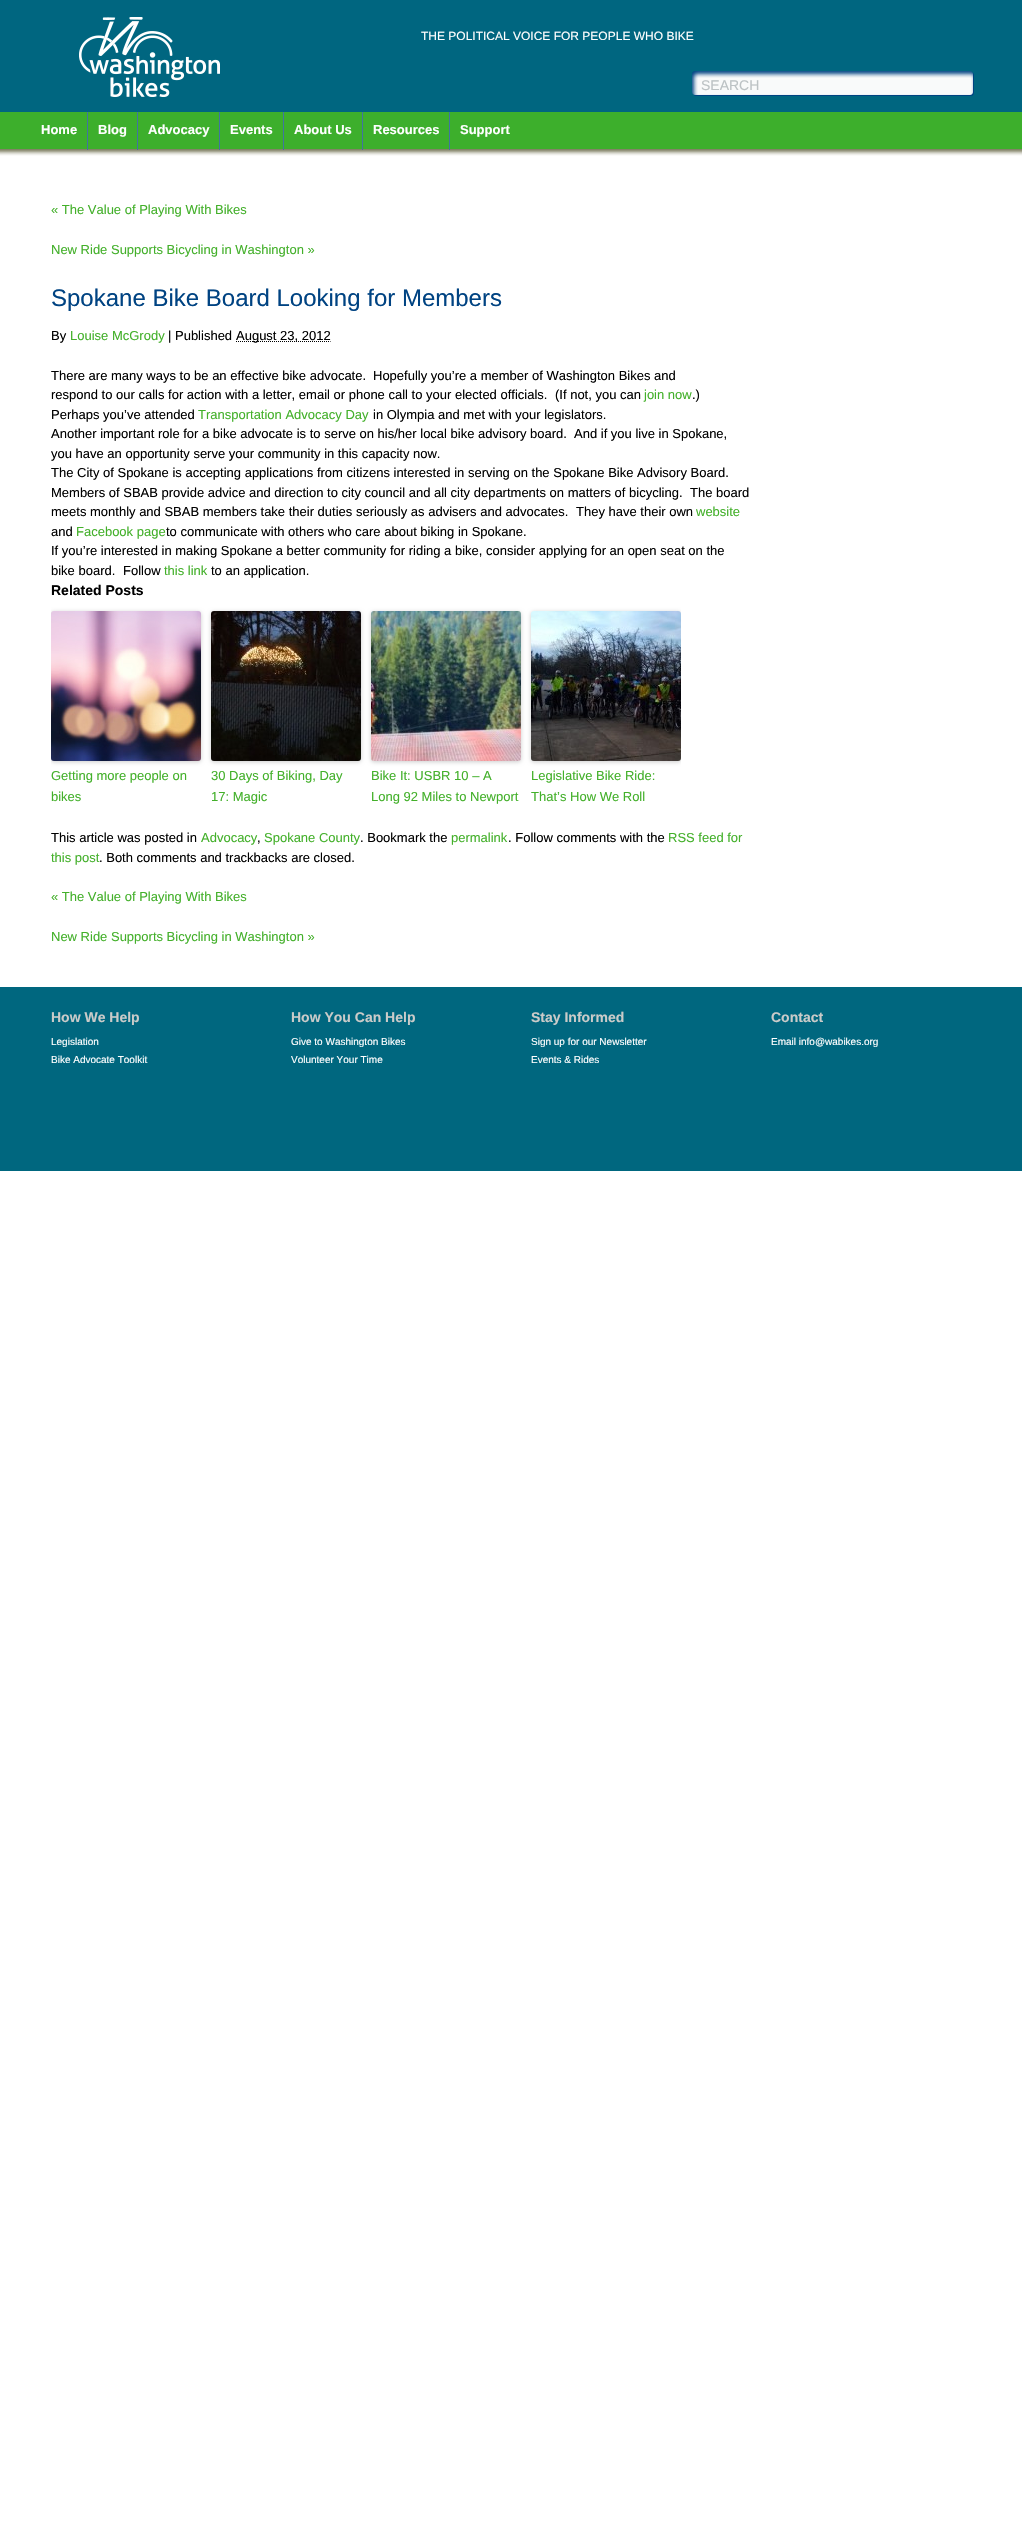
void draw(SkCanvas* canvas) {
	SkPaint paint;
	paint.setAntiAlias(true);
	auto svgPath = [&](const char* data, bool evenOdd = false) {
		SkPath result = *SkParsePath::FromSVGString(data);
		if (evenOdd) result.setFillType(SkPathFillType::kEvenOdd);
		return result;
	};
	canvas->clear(0xffffffff);
	canvas->drawImageRect(SkImages::DeferredFromEncodedData(SkData::MakeFromFileName("img1.png")), SkRect::MakeXYWH(0, 0, 1022, 156), SkSamplingOptions());
	canvas->drawImageRect(SkImages::DeferredFromEncodedData(SkData::MakeFromFileName("img2.png")), SkRect::MakeXYWH(79, 17, 141, 80), SkSamplingOptions());
	SkFont f1(fontMgr->matchFamilyStyle("Liberation Sans", SkFontStyle::Normal()), 12);
	f1.setSubpixel(true);
	paint.setColor(0xffffffff);
	canvas->drawString("THE POLITICAL VOICE FOR PEOPLE WHO BIKE", 421, 40, f1, paint);
	canvas->drawImageRect(SkImages::DeferredFromEncodedData(SkData::MakeFromFileName("img3.png")), SkRect::MakeXYWH(692, 71, 282, 25), SkSamplingOptions());
	SkFont f2(fontMgr->matchFamilyStyle("Liberation Sans", SkFontStyle::Normal()), 14);
	f2.setSubpixel(true);
	paint.setColor(0xffbcc2c4);
	canvas->drawString("SEARCH", 701, 90, f2, paint);
	paint.setColor(0xff4173a2);
	canvas->drawRect(SkRect::MakeXYWH(87, 112, 1, 38), paint);
	SkFont f3(fontMgr->matchFamilyStyle("Liberation Sans", SkFontStyle::Bold()), 13);
	f3.setSubpixel(true);
	paint.setColor(0xffffffff);
	canvas->drawString("Home", 41, 134, f3, paint);
	paint.setColor(0xff4173a2);
	canvas->drawRect(SkRect::MakeXYWH(137, 112, 1, 38), paint);
	paint.setColor(0xffffffff);
	canvas->drawString("Blog", 98, 134, f3, paint);
	paint.setColor(0xff4173a2);
	canvas->drawRect(SkRect::MakeXYWH(219, 112, 1, 38), paint);
	paint.setColor(0xffffffff);
	canvas->drawString("Advocacy", 148, 134, f3, paint);
	paint.setColor(0xff4173a2);
	canvas->drawRect(SkRect::MakeXYWH(283, 112, 1, 38), paint);
	paint.setColor(0xffffffff);
	canvas->drawString("Events", 230, 134, f3, paint);
	paint.setColor(0xff4173a2);
	canvas->drawRect(SkRect::MakeXYWH(362, 112, 1, 38), paint);
	paint.setColor(0xffffffff);
	canvas->drawString("About Us", 294, 134, f3, paint);
	paint.setColor(0xff4173a2);
	canvas->drawRect(SkRect::MakeXYWH(449, 112, 1, 38), paint);
	paint.setColor(0xffffffff);
	canvas->drawString("Resources", 373, 134, f3, paint);
	canvas->drawString("Support", 460, 134, f3, paint);
	SkFont f4(fontMgr->matchFamilyStyle("Liberation Sans", SkFontStyle::Normal()), 13);
	f4.setSubpixel(true);
	paint.setColor(0xff43b02a);
	canvas->drawString("« The Value of Playing With Bikes", 51, 214, f4, paint);
	canvas->drawString("New Ride Supports Bicycling in Washington »", 51, 254, f4, paint);
	SkFont f5(fontMgr->matchFamilyStyle("Liberation Sans", SkFontStyle::Normal()), 24);
	f5.setSubpixel(true);
	paint.setColor(0xff004382);
	canvas->drawString("Spokane Bike Board Looking for Members", 51, 306, f5, paint);
	paint.setColor(0xff000000);
	canvas->drawString("By", 51, 340, f4, paint);
	paint.setColor(0xff43b02a);
	canvas->drawString("Louise McGrody", 70, 340, f4, paint);
	paint.setColor(0xff000000);
	canvas->drawString("| Published", 168, 340, f4, paint);
	paint.setStroke(true);
	paint.setStrokeWidth(1);
	paint.setPathEffect(SkDashPathEffect::Make({{1, 1}}, 0));
	canvas->drawPath(svgPath("M236 341.5H330.5"), paint);
	paint.setPathEffect(nullptr);
	paint.setStroke(false);
	canvas->drawString("August 23, 2012", 236, 340, f4, paint);
	canvas->drawString("There are many ways to be an effective bike advocate.", 51, 380, f4, paint);
	canvas->drawString("Hopefully you’re a member of Washington Bikes and", 373, 380, f4, paint);
	canvas->drawString("respond to our calls for action with a letter, email or phone call to your elected officials.", 51, 399, f4, paint);
	canvas->drawString("(If not, you can", 555, 399, f4, paint);
	paint.setColor(0xff43b02a);
	canvas->drawString("join now", 644, 399, f4, paint);
	paint.setColor(0xff000000);
	canvas->drawString(".)", 692, 399, f4, paint);
	canvas->drawString("Perhaps you’ve attended", 51, 419, f4, paint);
	paint.setColor(0xff43b02a);
	canvas->drawString("Transportation Advocacy Day", 198, 419, f4, paint);
	paint.setColor(0xff000000);
	canvas->drawString("in Olympia and met with your legislators.", 373, 419, f4, paint);
	canvas->drawString("Another important role for a bike advocate is to serve on his/her local bike advisory board.", 51, 438, f4, paint);
	canvas->drawString("And if you live in Spokane,", 574, 438, f4, paint);
	canvas->drawString("you have an opportunity serve your community in this capacity now.", 51, 458, f4, paint);
	canvas->drawString("The City of Spokane is accepting applications from citizens interested in serving on the Spokane Bike Advisory Board.", 51, 477, f4, paint);
	canvas->drawString("Members of SBAB provide advice and direction to city council and all city departments on matters of bicycling.", 51, 497, f4, paint);
	canvas->drawString("The board", 690, 497, f4, paint);
	canvas->drawString("meets monthly and SBAB members take their duties seriously as advisers and advocates.", 51, 516, f4, paint);
	canvas->drawString("They have their own", 576, 516, f4, paint);
	paint.setColor(0xff43b02a);
	canvas->drawString("website", 696, 516, f4, paint);
	paint.setColor(0xff000000);
	canvas->drawString("and", 51, 536, f4, paint);
	paint.setColor(0xff43b02a);
	canvas->drawString("Facebook page", 76, 536, f4, paint);
	paint.setColor(0xff000000);
	canvas->drawString("to communicate with others who care about biking in Spokane.", 166, 536, f4, paint);
	canvas->drawString("If you’re interested in making Spokane a better community for riding a bike, consider applying for an open seat on the", 51, 555, f4, paint);
	canvas->drawString("bike board.", 51, 575, f4, paint);
	canvas->drawString("Follow", 123, 575, f4, paint);
	paint.setColor(0xff43b02a);
	canvas->drawString("this link", 164, 575, f4, paint);
	paint.setColor(0xff000000);
	canvas->drawString("to an application.", 211, 575, f4, paint);
	SkFont f6(fontMgr->matchFamilyStyle("Liberation Sans", SkFontStyle::Bold()), 14);
	f6.setSubpixel(true);
	canvas->drawString("Related Posts", 51, 595, f6, paint);
	canvas->save();
	canvas->clipRect(SkRect::MakeXYWH(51, 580, 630, 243));
	paint.setColor(0x33000000);
	paint.setMaskFilter(SkMaskFilter::MakeBlur(kNormal_SkBlurStyle, 2));
	canvas->drawRoundRect(SkRect::MakeXYWH(51, 612, 150, 150), 3, 3, paint);
	paint.setMaskFilter(nullptr);
	canvas->restore();
	canvas->drawImageRect(SkImages::DeferredFromEncodedData(SkData::MakeFromFileName("img4.png")), SkRect::MakeXYWH(51, 611, 150, 150), SkSamplingOptions());
	paint.setColor(0xff43b02a);
	canvas->drawString("Getting more people on", 51, 780, f4, paint);
	canvas->drawString("bikes", 51, 801, f4, paint);
	paint.setColor(0x33000000);
	paint.setMaskFilter(SkMaskFilter::MakeBlur(kNormal_SkBlurStyle, 2));
	canvas->drawRoundRect(SkRect::MakeXYWH(211, 612, 150, 150), 3, 3, paint);
	paint.setMaskFilter(nullptr);
	canvas->drawImageRect(SkImages::DeferredFromEncodedData(SkData::MakeFromFileName("img5.png")), SkRect::MakeXYWH(211, 611, 150, 150), SkSamplingOptions());
	paint.setColor(0xff43b02a);
	canvas->drawString("30 Days of Biking, Day", 211, 780, f4, paint);
	canvas->drawString("17: Magic", 211, 801, f4, paint);
	paint.setColor(0x33000000);
	paint.setMaskFilter(SkMaskFilter::MakeBlur(kNormal_SkBlurStyle, 2));
	canvas->drawRoundRect(SkRect::MakeXYWH(371, 612, 150, 150), 3, 3, paint);
	paint.setMaskFilter(nullptr);
	canvas->drawImageRect(SkImages::DeferredFromEncodedData(SkData::MakeFromFileName("img6.png")), SkRect::MakeXYWH(371, 611, 150, 150), SkSamplingOptions());
	paint.setColor(0xff43b02a);
	canvas->drawString("Bike It: USBR 10 – A", 371, 780, f4, paint);
	canvas->drawString("Long 92 Miles to Newport", 371, 801, f4, paint);
	canvas->save();
	canvas->clipRect(SkRect::MakeXYWH(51, 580, 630, 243));
	paint.setColor(0x33000000);
	paint.setMaskFilter(SkMaskFilter::MakeBlur(kNormal_SkBlurStyle, 2));
	canvas->drawRoundRect(SkRect::MakeXYWH(531, 612, 150, 150), 3, 3, paint);
	paint.setMaskFilter(nullptr);
	canvas->restore();
	canvas->drawImageRect(SkImages::DeferredFromEncodedData(SkData::MakeFromFileName("img7.png")), SkRect::MakeXYWH(531, 611, 150, 150), SkSamplingOptions());
	paint.setColor(0xff43b02a);
	canvas->drawString("Legislative Bike Ride:", 531, 780, f4, paint);
	canvas->drawString("That’s How We Roll", 531, 801, f4, paint);
	paint.setColor(0xff000000);
	canvas->drawString("This article was posted in", 51, 842, f4, paint);
	paint.setColor(0xff43b02a);
	canvas->drawString("Advocacy", 201, 842, f4, paint);
	paint.setColor(0xff000000);
	canvas->drawString(",", 257, 842, f4, paint);
	paint.setColor(0xff43b02a);
	canvas->drawString("Spokane County", 264, 842, f4, paint);
	paint.setColor(0xff000000);
	canvas->drawString(". Bookmark the", 360, 842, f4, paint);
	paint.setColor(0xff43b02a);
	canvas->drawString("permalink", 451, 842, f4, paint);
	paint.setColor(0xff000000);
	canvas->drawString(". Follow comments with the", 508, 842, f4, paint);
	paint.setColor(0xff43b02a);
	canvas->drawString("RSS feed for", 668, 842, f4, paint);
	canvas->drawString("this post", 51, 862, f4, paint);
	paint.setColor(0xff000000);
	canvas->drawString(". Both comments and trackbacks are closed.", 99, 862, f4, paint);
	paint.setColor(0xff43b02a);
	canvas->drawString("« The Value of Playing With Bikes", 51, 901, f4, paint);
	canvas->drawString("New Ride Supports Bicycling in Washington »", 51, 941, f4, paint);
	paint.setColor(0xff00677f);
	canvas->drawRect(SkRect::MakeXYWH(0, 987, 1022, 184), paint);
	paint.setColor(0xffcacbc9);
	canvas->drawString("How We Help", 51, 1022, f6, paint);
	SkFont f7(fontMgr->matchFamilyStyle("Liberation Sans", SkFontStyle::Normal()), 10);
	f7.setSubpixel(true);
	paint.setColor(0xffffffff);
	canvas->drawString("Legislation", 51, 1045, f7, paint);
	canvas->drawString("Bike Advocate Toolkit", 51, 1063, f7, paint);
	paint.setColor(0xffcacbc9);
	canvas->drawString("How You Can Help", 291, 1022, f6, paint);
	paint.setColor(0xffffffff);
	canvas->drawString("Give to Washington Bikes", 291, 1045, f7, paint);
	canvas->drawString("Volunteer Your Time", 291, 1063, f7, paint);
	paint.setColor(0xffcacbc9);
	canvas->drawString("Stay Informed", 531, 1022, f6, paint);
	paint.setColor(0xffffffff);
	canvas->drawString("Sign up for our Newsletter", 531, 1045, f7, paint);
	canvas->drawString("Events & Rides", 531, 1063, f7, paint);
	paint.setColor(0xffcacbc9);
	canvas->drawString("Contact", 771, 1022, f6, paint);
	paint.setColor(0xffffffff);
	canvas->drawString("Email info@wabikes.org", 771, 1045, f7, paint);
}
